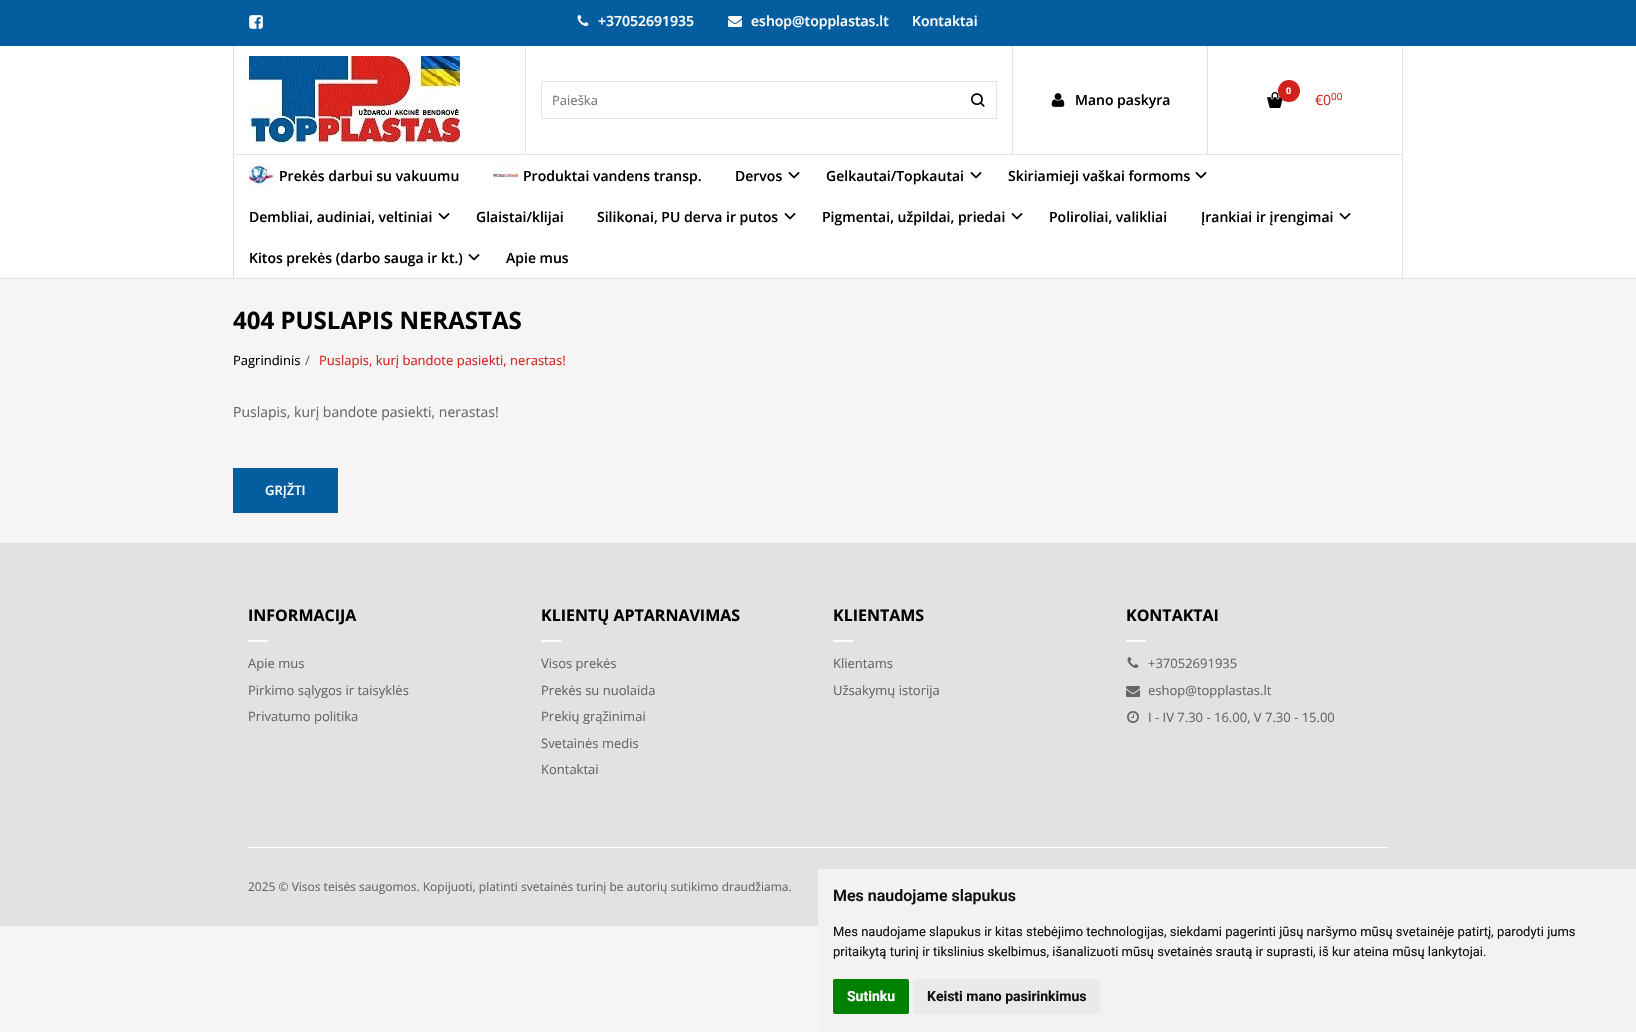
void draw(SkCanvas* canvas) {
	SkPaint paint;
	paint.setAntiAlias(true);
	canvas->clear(0xfff5f5f5);
	paint.setColor(0xff045d9f);
	canvas->drawRect(SkRect::MakeXYWH(0, 0, 1636, 46), paint);
	canvas->drawImageRect(SkImages::DeferredFromEncodedData(SkData::MakeFromFileName("img1.png")), SkRect::MakeXYWH(249, 15, 14, 14), SkSamplingOptions());
	canvas->drawImageRect(SkImages::DeferredFromEncodedData(SkData::MakeFromFileName("img2.png")), SkRect::MakeXYWH(577, 15, 12, 11), SkSamplingOptions());
	SkFont f1(fontMgr->matchFamilyStyle("Open Sans", SkFontStyle(600, SkFontStyle::kNormal_Width, SkFontStyle::kUpright_Slant)), 14);
	f1.setSubpixel(true);
	paint.setColor(0xffffffff);
	canvas->drawString("+37052691935", 598, 26, f1, paint);
	canvas->drawImageRect(SkImages::DeferredFromEncodedData(SkData::MakeFromFileName("img3.png")), SkRect::MakeXYWH(728, 16, 14, 11), SkSamplingOptions());
	canvas->drawString("eshop@topplastas.lt", 751, 26, f1, paint);
	canvas->drawString("Kontaktai", 912, 26, f1, paint);
	canvas->drawRect(SkRect::MakeXYWH(0, 46, 1636, 232), paint);
	paint.setColor(0xffe2e2e2);
	canvas->drawRect(SkRect::MakeXYWH(0, 278, 1636, 1), paint);
	canvas->drawRect(SkRect::MakeXYWH(525, 46, 1, 108), paint);
	canvas->drawImageRect(SkImages::DeferredFromEncodedData(SkData::MakeFromFileName("img4.png")), SkRect::MakeXYWH(249, 56, 211, 88), SkSamplingOptions());
	canvas->drawRect(SkRect::MakeXYWH(1012, 46, 1, 108), paint);
	paint.setStroke(true);
	paint.setStrokeWidth(1);
	canvas->drawRect(SkRect::MakeXYWH(541.5, 81.5, 455, 37), paint);
	SkFont f2(fontMgr->matchFamilyStyle("Open Sans", SkFontStyle::Normal()), 13);
	f2.setSubpixel(true);
	paint.setStroke(false);
	paint.setColor(0xff757575);
	canvas->drawString("Paieška", 552, 105, f2, paint);
	canvas->drawImageRect(SkImages::DeferredFromEncodedData(SkData::MakeFromFileName("img5.png")), SkRect::MakeXYWH(971, 93, 14, 14), SkSamplingOptions());
	paint.setColor(0xffe2e2e2);
	canvas->drawRect(SkRect::MakeXYWH(1207, 46, 1, 108), paint);
	canvas->drawImageRect(SkImages::DeferredFromEncodedData(SkData::MakeFromFileName("img6.png")), SkRect::MakeXYWH(1051, 93, 14, 14), SkSamplingOptions());
	paint.setColor(0xff000000);
	canvas->drawString("Mano paskyra", 1075, 105, f1, paint);
	paint.setColor(0xffe2e2e2);
	canvas->drawRect(SkRect::MakeXYWH(1402, 46, 1, 108), paint);
	canvas->drawImageRect(SkImages::DeferredFromEncodedData(SkData::MakeFromFileName("img7.png")), SkRect::MakeXYWH(1267, 92, 16, 16), SkSamplingOptions());
	paint.setColor(0xffd2201d);
	canvas->drawCircle(1289, 91, 11, paint);
	SkFont f3(fontMgr->matchFamilyStyle("Open Sans", SkFontStyle::Bold()), 9);
	f3.setSubpixel(true);
	paint.setColor(0xffffffff);
	canvas->drawString("0", 1286, 94, f3, paint);
	SkFont f4(fontMgr->matchFamilyStyle("Open Sans", SkFontStyle::Normal()), 14);
	f4.setSubpixel(true);
	paint.setColor(0xffd2201d);
	canvas->drawString("€0", 1315, 105, f4, paint);
	SkFont f5(fontMgr->matchFamilyStyle("Open Sans", SkFontStyle::Normal()), 10);
	f5.setSubpixel(true);
	canvas->drawString("00", 1331, 100, f5, paint);
	paint.setColor(0xffe2e2e2);
	canvas->drawRect(SkRect::MakeXYWH(233, 154, 1170, 1), paint);
	canvas->drawRect(SkRect::MakeXYWH(1402, 154, 1, 124), paint);
	canvas->drawRect(SkRect::MakeXYWH(233, 46, 1, 232), paint);
	canvas->drawImageRect(SkImages::DeferredFromEncodedData(SkData::MakeFromFileName("img8.png")), SkRect::MakeXYWH(249, 163, 25, 24), SkSamplingOptions());
	paint.setColor(0xff000000);
	canvas->drawString("Prekės darbui su vakuumu", 279, 181, f1, paint);
	canvas->drawImageRect(SkImages::DeferredFromEncodedData(SkData::MakeFromFileName("img9.png")), SkRect::MakeXYWH(493, 163, 25, 16), SkSamplingOptions());
	canvas->drawString("Produktai vandens transp.", 523, 181, f1, paint);
	canvas->drawString("Dervos", 735, 181, f1, paint);
	canvas->drawImageRect(SkImages::DeferredFromEncodedData(SkData::MakeFromFileName("img10.png")), SkRect::MakeXYWH(788, 171, 12, 8), SkSamplingOptions());
	canvas->drawString("Gelkautai/Topkautai", 826, 181, f1, paint);
	canvas->drawImageRect(SkImages::DeferredFromEncodedData(SkData::MakeFromFileName("img10.png")), SkRect::MakeXYWH(970, 171, 12, 8), SkSamplingOptions());
	canvas->drawString("Skiriamieji vaškai formoms", 1008, 181, f1, paint);
	canvas->drawImageRect(SkImages::DeferredFromEncodedData(SkData::MakeFromFileName("img10.png")), SkRect::MakeXYWH(1195, 171, 12, 8), SkSamplingOptions());
	canvas->drawString("Dembliai, audiniai, veltiniai", 249, 222, f1, paint);
	canvas->drawImageRect(SkImages::DeferredFromEncodedData(SkData::MakeFromFileName("img10.png")), SkRect::MakeXYWH(438, 212, 12, 8), SkSamplingOptions());
	canvas->drawString("Glaistai/klijai", 476, 222, f1, paint);
	canvas->drawString("Silikonai, PU derva ir putos", 597, 222, f1, paint);
	canvas->drawImageRect(SkImages::DeferredFromEncodedData(SkData::MakeFromFileName("img10.png")), SkRect::MakeXYWH(784, 212, 12, 8), SkSamplingOptions());
	canvas->drawString("Pigmentai, užpildai, priedai", 822, 222, f1, paint);
	canvas->drawImageRect(SkImages::DeferredFromEncodedData(SkData::MakeFromFileName("img10.png")), SkRect::MakeXYWH(1011, 212, 12, 8), SkSamplingOptions());
	canvas->drawString("Poliroliai, valikliai", 1049, 222, f1, paint);
	canvas->drawString("Įrankiai ir įrengimai", 1201, 222, f1, paint);
	canvas->drawImageRect(SkImages::DeferredFromEncodedData(SkData::MakeFromFileName("img10.png")), SkRect::MakeXYWH(1339, 212, 12, 8), SkSamplingOptions());
	canvas->drawString("Kitos prekės (darbo sauga ir kt.)", 249, 263, f1, paint);
	canvas->drawImageRect(SkImages::DeferredFromEncodedData(SkData::MakeFromFileName("img10.png")), SkRect::MakeXYWH(468, 253, 12, 8), SkSamplingOptions());
	canvas->drawString("Apie mus", 506, 263, f1, paint);
	SkFont f6(fontMgr->matchFamilyStyle("Open Sans", SkFontStyle::Bold()), 24);
	f6.setSubpixel(true);
	canvas->drawString("404 PUSLAPIS NERASTAS", 233, 329, f6, paint);
	canvas->drawString("Pagrindinis", 233, 365, f2, paint);
	paint.setColor(0xff666666);
	canvas->drawString("/", 305, 365, f2, paint);
	paint.setColor(0xffd2201d);
	canvas->drawString("Puslapis, kurį bandote pasiekti, nerastas!", 319, 365, f2, paint);
	paint.setColor(0xff666666);
	canvas->drawString("Puslapis, kurį bandote pasiekti, nerastas!", 233, 417, f4, paint);
	paint.setColor(0xff045d9f);
	canvas->drawRect(SkRect::MakeXYWH(233, 468, 105, 45), paint);
	SkFont f7(fontMgr->matchFamilyStyle("Open Sans", SkFontStyle(600, SkFontStyle::kNormal_Width, SkFontStyle::kUpright_Slant)), 13);
	f7.setSubpixel(true);
	paint.setColor(0xffffffff);
	canvas->drawString("GRĮŽTI", 265, 495, f7, paint);
	paint.setColor(0xffe2e2e2);
	canvas->drawRect(SkRect::MakeXYWH(0, 543, 1636, 383), paint);
	SkFont f8(fontMgr->matchFamilyStyle("Open Sans", SkFontStyle::Bold()), 16);
	f8.setSubpixel(true);
	paint.setColor(0xff000000);
	canvas->drawString("INFORMACIJA", 248, 621, f8, paint);
	paint.setColor(0xffffffff);
	canvas->drawRect(SkRect::MakeXYWH(248, 640, 20, 2), paint);
	paint.setColor(0xff666666);
	canvas->drawString("Apie mus", 248, 668, f2, paint);
	canvas->drawString("Pirkimo sąlygos ir taisyklės", 248, 695, f2, paint);
	canvas->drawString("Privatumo politika", 248, 721, f2, paint);
	paint.setColor(0xff000000);
	canvas->drawString("KLIENTŲ APTARNAVIMAS", 541, 621, f8, paint);
	paint.setColor(0xffffffff);
	canvas->drawRect(SkRect::MakeXYWH(541, 640, 20, 2), paint);
	paint.setColor(0xff666666);
	canvas->drawString("Visos prekės", 541, 668, f2, paint);
	canvas->drawString("Prekės su nuolaida", 541, 695, f2, paint);
	canvas->drawString("Prekių grąžinimai", 541, 721, f2, paint);
	canvas->drawString("Svetainės medis", 541, 748, f2, paint);
	canvas->drawString("Kontaktai", 541, 774, f2, paint);
	paint.setColor(0xff000000);
	canvas->drawString("KLIENTAMS", 833, 621, f8, paint);
	paint.setColor(0xffffffff);
	canvas->drawRect(SkRect::MakeXYWH(833, 640, 20, 2), paint);
	paint.setColor(0xff666666);
	canvas->drawString("Klientams", 833, 668, f2, paint);
	canvas->drawString("Užsakymų istorija", 833, 695, f2, paint);
	paint.setColor(0xff000000);
	canvas->drawString("KONTAKTAI", 1126, 621, f8, paint);
	paint.setColor(0xffffffff);
	canvas->drawRect(SkRect::MakeXYWH(1126, 640, 20, 2), paint);
	canvas->drawImageRect(SkImages::DeferredFromEncodedData(SkData::MakeFromFileName("img11.png")), SkRect::MakeXYWH(1127, 657, 12, 11), SkSamplingOptions());
	paint.setColor(0xff666666);
	canvas->drawString("+37052691935", 1148, 668, f2, paint);
	canvas->drawImageRect(SkImages::DeferredFromEncodedData(SkData::MakeFromFileName("img12.png")), SkRect::MakeXYWH(1126, 686, 14, 11), SkSamplingOptions());
	canvas->drawString("eshop@topplastas.lt", 1148, 695, f2, paint);
	canvas->drawImageRect(SkImages::DeferredFromEncodedData(SkData::MakeFromFileName("img13.png")), SkRect::MakeXYWH(1127, 711, 12, 12), SkSamplingOptions());
	canvas->drawString("I - IV 7.30 - 16.00, V 7.30 - 15.00", 1148, 722, f2, paint);
	paint.setColor(0xffffffff);
	canvas->drawRect(SkRect::MakeXYWH(248, 847, 1140, 1), paint);
	SkFont f9(fontMgr->matchFamilyStyle("Open Sans", SkFontStyle::Normal()), 12);
	f9.setSubpixel(true);
	paint.setColor(0xff666666);
	canvas->drawString("2025 © Visos teisės saugomos. Kopijuoti, platinti svetainės turinį be autorių sutikimo draudžiama.", 248, 891, f9, paint);
	paint.setColor(0xfff2f2f2);
	canvas->drawRect(SkRect::MakeXYWH(818, 869, 818, 163), paint);
	SkFont f10(fontMgr->matchFamilyStyle("Roboto", SkFontStyle(600, SkFontStyle::kNormal_Width, SkFontStyle::kUpright_Slant)), 16);
	f10.setSubpixel(true);
	paint.setColor(0xff111111);
	canvas->drawString("Mes naudojame slapukus", 833, 901, f10, paint);
	SkFont f11(fontMgr->matchFamilyStyle("Roboto", SkFontStyle::Normal()), 13);
	f11.setSubpixel(true);
	canvas->drawString("Mes naudojame slapukus ir kitas stebėjimo technologijas, siekdami pagerinti jūsų naršymo mūsų svetainėje patirtį, parodyti jums", 833, 936, f11, paint);
	canvas->drawString("pritaikytą turinį ir tikslinius skelbimus, išanalizuoti mūsų svetainės srautą ir suprasti, iš kur ateina mūsų lankytojai.", 833, 956, f11, paint);
	paint.setColor(0xff008000);
	canvas->drawRoundRect(SkRect::MakeXYWH(833, 979, 76, 35), 2, 2, paint);
	SkFont f12(fontMgr->matchFamilyStyle("Roboto", SkFontStyle::Bold()), 14);
	f12.setSubpixel(true);
	paint.setColor(0xffffffff);
	canvas->drawString("Sutinku", 847, 1001, f12, paint);
	paint.setColor(0xffeaeaea);
	canvas->drawRoundRect(SkRect::MakeXYWH(913, 979, 187, 35), 2, 2, paint);
	paint.setColor(0xff111111);
	canvas->drawString("Keisti mano pasirinkimus", 927, 1001, f12, paint);
}
